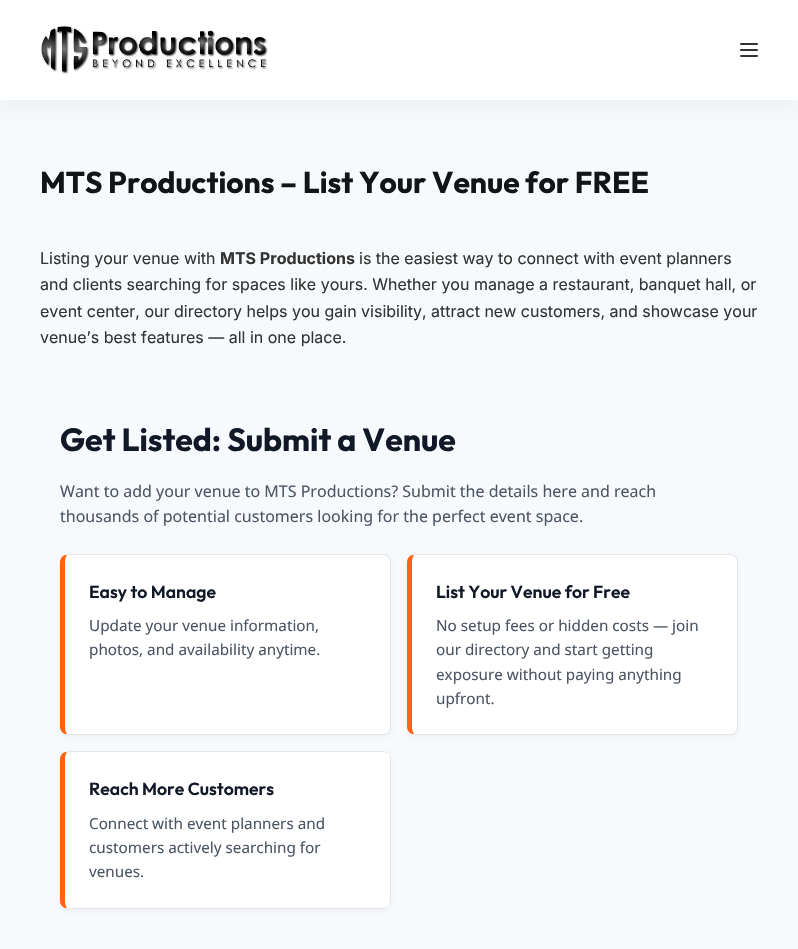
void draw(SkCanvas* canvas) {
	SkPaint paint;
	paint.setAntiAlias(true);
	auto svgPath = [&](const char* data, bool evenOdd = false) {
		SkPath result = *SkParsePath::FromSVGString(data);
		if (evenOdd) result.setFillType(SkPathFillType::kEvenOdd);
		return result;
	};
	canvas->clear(0xfff7fafc);
	paint.setColor(0x0d2c3e50);
	paint.setMaskFilter(SkMaskFilter::MakeBlur(kNormal_SkBlurStyle, 10));
	canvas->drawRect(SkRect::MakeXYWH(0, 10, 798, 100), paint);
	paint.setMaskFilter(nullptr);
	paint.setColor(0xffffffff);
	canvas->drawRect(SkRect::MakeXYWH(0, 0, 798, 100), paint);
	canvas->drawImageRect(SkImages::DeferredFromEncodedData(SkData::MakeFromFileName("img1.png")), SkRect::MakeXYWH(41, 26, 227, 48), SkSamplingOptions());
	paint.setColor(0xff333333);
	canvas->drawRoundRect(SkRect::MakeXYWH(740, 43, 18, 2), 1, 1, paint);
	canvas->drawRoundRect(SkRect::MakeXYWH(740, 49, 18, 2), 1, 1, paint);
	canvas->drawRoundRect(SkRect::MakeXYWH(740, 55, 18, 2), 1, 1, paint);
	SkFont f1(fontMgr->matchFamilyStyle("Outfit", SkFontStyle::Bold()), 30);
	f1.setSubpixel(true);
	paint.setColor(0xff111518);
	canvas->drawString("MTS Productions – List Your Venue for FREE", 40, 193, f1, paint);
	SkFont f2(fontMgr->matchFamilyStyle("Inter", SkFontStyle::Normal()), 16);
	f2.setSubpixel(true);
	paint.setColor(0xff333333);
	canvas->drawString("Listing your venue with", 40, 264, f2, paint);
	SkFont f3(fontMgr->matchFamilyStyle("Inter", SkFontStyle::Bold()), 16);
	f3.setSubpixel(true);
	canvas->drawString("MTS Productions", 220, 264, f3, paint);
	canvas->drawString("is the easiest way to connect with event planners", 359, 264, f2, paint);
	canvas->drawString("and clients searching for spaces like yours. Whether you manage a restaurant, banquet hall, or", 40, 290, f2, paint);
	canvas->drawString("event center, our directory helps you gain visibility, attract new customers, and showcase your", 40, 317, f2, paint);
	canvas->drawString("venue’s best features — all in one place.", 40, 343, f2, paint);
	SkFont f4(fontMgr->matchFamilyStyle("Outfit", SkFontStyle::Bold()), 32);
	f4.setSubpixel(true);
	paint.setColor(0xff111827);
	canvas->drawString("Get Listed: Submit a Venue", 60, 451, f4, paint);
	SkFont f5(fontMgr->matchFamilyStyle("Noto Sans", SkFontStyle::Normal()), 16);
	f5.setSubpixel(true);
	paint.setColor(0xff4b5563);
	canvas->drawString("Want to add your venue to MTS Productions? Submit the details here and reach", 60, 497, f5, paint);
	canvas->drawString("thousands of potential customers looking for the perfect event space.", 60, 522, f5, paint);
	paint.setColor(0x0a000000);
	paint.setMaskFilter(SkMaskFilter::MakeBlur(kNormal_SkBlurStyle, 2));
	canvas->drawRoundRect(SkRect::MakeXYWH(60, 556, 331, 181), 8, 8, paint);
	paint.setMaskFilter(nullptr);
	paint.setColor(0xffffffff);
	canvas->drawPath(svgPath("M68 555H383C387 555 390 558 390 562V727C390 731 387 734 383 734H68C66 734 65 731 65 727V562C65 558 66 555 68 555Z"), paint);
	paint.setColor(0xffe5e7eb);
	canvas->drawPath(svgPath("M68 554L65 555H67H68H383C385 555 387 556 388 557V556C387 555 385 554 383 554Z"), paint);
	canvas->drawPath(svgPath("M391 727V562C391 560 390 558 388 556V557C389 558 390 560 390 562V727C390 729 389 731 388 732C390 731 391 729 391 727Z"), paint);
	canvas->drawPath(svgPath("M68 735H383C385 735 387 734 388 732C387 733 385 734 383 734H68H67H65Z"), paint);
	paint.setColor(0xffff6310);
	canvas->drawPath(svgPath("M60 562V727C60 730 62 733 65 734H67C66 733 65 730 65 727V562C65 559 66 556 67 555H65C62 556 60 559 60 562Z"), paint);
	SkFont f6(fontMgr->matchFamilyStyle("Outfit", SkFontStyle(600, SkFontStyle::kNormal_Width, SkFontStyle::kUpright_Slant)), 17.6);
	f6.setSubpixel(true);
	paint.setColor(0xff111827);
	canvas->drawString("Easy to Manage", 89, 598, f6, paint);
	SkFont f7(fontMgr->matchFamilyStyle("Noto Sans", SkFontStyle::Normal()), 15.25);
	f7.setSubpixel(true);
	paint.setColor(0xff4b5563);
	canvas->drawString("Update your venue information,", 89, 631, f7, paint);
	canvas->drawString("photos, and availability anytime.", 89, 655, f7, paint);
	paint.setColor(0x0a000000);
	paint.setMaskFilter(SkMaskFilter::MakeBlur(kNormal_SkBlurStyle, 2));
	canvas->drawRoundRect(SkRect::MakeXYWH(407, 556, 331, 181), 8, 8, paint);
	paint.setMaskFilter(nullptr);
	paint.setColor(0xffffffff);
	canvas->drawPath(svgPath("M415 555H730C734 555 737 558 737 562V727C737 731 734 734 730 734H415C413 734 412 731 412 727V562C412 558 413 555 415 555Z"), paint);
	paint.setColor(0xffe5e7eb);
	canvas->drawPath(svgPath("M415 554L412 555H414H415H730C732 555 734 556 735 557L736 556C734 555 732 554 730 554Z"), paint);
	canvas->drawPath(svgPath("M738 727V562C738 560 737 558 736 556L735 557C736 558 737 560 737 562V727C737 729 736 731 735 732H736C737 731 738 729 738 727Z"), paint);
	canvas->drawPath(svgPath("M415 735H730C732 735 734 734 736 732H735C734 733 732 734 730 734H415H414H412Z"), paint);
	paint.setColor(0xffff6310);
	canvas->drawPath(svgPath("M407 562V727C407 730 409 733 412 734H414C413 733 412 730 412 727V562C412 559 413 556 414 555H412C409 556 407 559 407 562Z"), paint);
	paint.setColor(0xff111827);
	canvas->drawString("List Your Venue for Free", 436, 598, f6, paint);
	paint.setColor(0xff4b5563);
	canvas->drawString("No setup fees or hidden costs — join", 436, 631, f7, paint);
	canvas->drawString("our directory and start getting", 436, 655, f7, paint);
	canvas->drawString("exposure without paying anything", 436, 680, f7, paint);
	canvas->drawString("upfront.", 436, 704, f7, paint);
	paint.setColor(0x0a000000);
	paint.setMaskFilter(SkMaskFilter::MakeBlur(kNormal_SkBlurStyle, 2));
	canvas->drawRoundRect(SkRect::MakeXYWH(60, 753, 331, 158), 8, 8, paint);
	paint.setMaskFilter(nullptr);
	paint.setColor(0xffffffff);
	canvas->drawPath(svgPath("M68 752H383C387 752 390 755 390 759V901C390 905 387 908 383 908H68C66 908 65 905 65 901V759C65 755 66 752 68 752Z"), paint);
	paint.setColor(0xffe5e7eb);
	canvas->drawPath(svgPath("M68 751L65 752H67H68H383C385 752 387 753 388 754C387 752 385 751 383 751Z"), paint);
	canvas->drawPath(svgPath("M391 901V759C391 757 390 755 388 754C389 755 390 757 390 759V901C390 903 389 905 388 906C390 905 391 903 391 901Z"), paint);
	canvas->drawPath(svgPath("M68 909H383C385 909 387 908 388 906C387 907 385 908 383 908H68H67H65Z"), paint);
	paint.setColor(0xffff6310);
	canvas->drawPath(svgPath("M60 759V901C60 904 62 907 65 908H67C66 907 65 904 65 901V759C65 756 66 753 67 752H65C62 753 60 756 60 759Z"), paint);
	paint.setColor(0xff111827);
	canvas->drawString("Reach More Customers", 89, 795, f6, paint);
	paint.setColor(0xff4b5563);
	canvas->drawString("Connect with event planners and", 89, 829, f7, paint);
	canvas->drawString("customers actively searching for", 89, 853, f7, paint);
	canvas->drawString("venues.", 89, 877, f7, paint);
}
